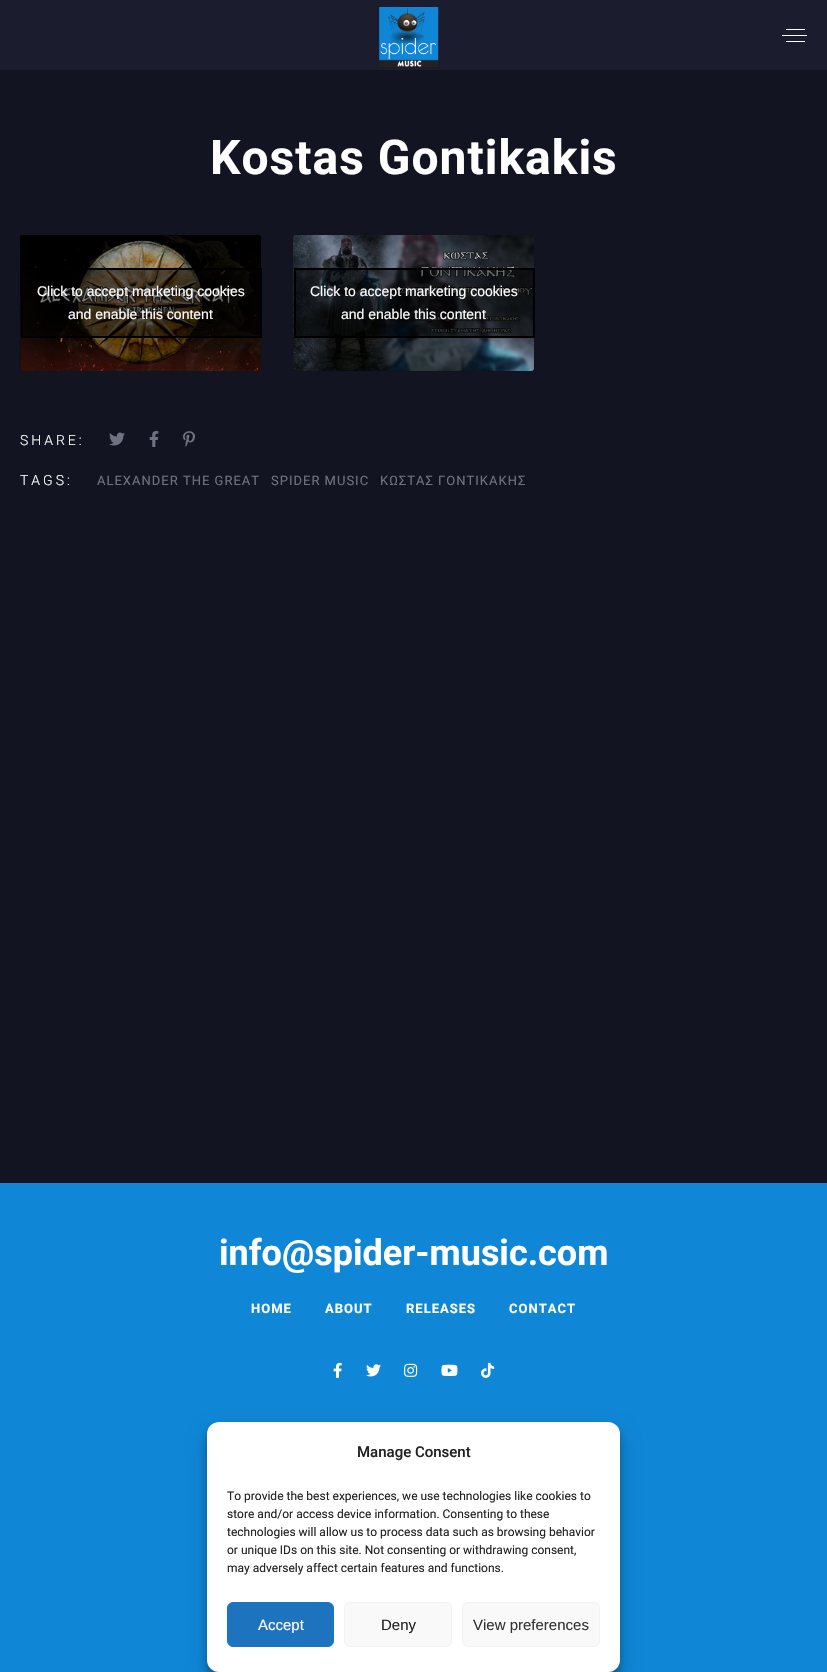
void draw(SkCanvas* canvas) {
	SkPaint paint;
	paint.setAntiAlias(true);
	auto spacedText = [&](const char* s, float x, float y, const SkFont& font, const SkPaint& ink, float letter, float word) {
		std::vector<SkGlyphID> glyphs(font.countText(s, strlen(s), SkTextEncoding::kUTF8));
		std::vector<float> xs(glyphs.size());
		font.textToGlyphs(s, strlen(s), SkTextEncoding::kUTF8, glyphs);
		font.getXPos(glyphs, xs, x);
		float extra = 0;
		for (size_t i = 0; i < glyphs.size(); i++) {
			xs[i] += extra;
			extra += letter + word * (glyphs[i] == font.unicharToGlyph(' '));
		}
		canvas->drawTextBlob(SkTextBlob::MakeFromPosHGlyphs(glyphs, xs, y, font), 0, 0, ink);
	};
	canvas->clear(0xff121421);
	paint.setColor(0xff1b1d2f);
	canvas->drawRect(SkRect::MakeXYWH(0, 0, 827, 70), paint);
	canvas->drawImageRect(SkImages::DeferredFromEncodedData(SkData::MakeFromFileName("img1.png")), SkRect::MakeXYWH(379, 7, 60, 60), SkSamplingOptions());
	paint.setColor(0xffffffff);
	canvas->drawRect(SkRect::MakeXYWH(786, 29, 19, 1), paint);
	canvas->drawRect(SkRect::MakeXYWH(782, 35, 25, 1), paint);
	canvas->drawRect(SkRect::MakeXYWH(786, 41, 19, 1), paint);
	SkFont f1(fontMgr->matchFamilyStyle("Roboto", SkFontStyle::Bold()), 48);
	f1.setSubpixel(true);
	spacedText("Kostas Gontikakis", 210, 174, f1, paint, 1, 0);
	paint.setColor(0x80000000);
	paint.setMaskFilter(SkMaskFilter::MakeBlur(kNormal_SkBlurStyle, 0.5));
	canvas->drawRoundRect(SkRect::MakeXYWH(20, 235, 241, 136), 3, 3, paint);
	paint.setMaskFilter(nullptr);
	canvas->drawImageRect(SkImages::DeferredFromEncodedData(SkData::MakeFromFileName("img2.png")), SkRect::MakeXYWH(20, 235, 241, 136), SkSamplingOptions());
	canvas->drawRect(SkRect::MakeXYWH(22, 269, 239, 68), paint);
	paint.setStroke(true);
	paint.setStrokeWidth(2);
	paint.setColor(0xff000000);
	canvas->drawRect(SkRect::MakeXYWH(22, 269, 239, 68), paint);
	SkFont f2(fontMgr->matchFamilyStyle("Liberation Sans", SkFontStyle::Normal()), 14);
	f2.setSubpixel(true);
	paint.setStroke(false);
	paint.setColor(0xffffffff);
	canvas->drawString("Click to accept marketing cookies", 37, 296, f2, paint);
	canvas->drawString("and enable this content", 68, 319, f2, paint);
	paint.setColor(0x80000000);
	paint.setMaskFilter(SkMaskFilter::MakeBlur(kNormal_SkBlurStyle, 0.5));
	canvas->drawRoundRect(SkRect::MakeXYWH(293, 235, 241, 136), 3, 3, paint);
	paint.setMaskFilter(nullptr);
	canvas->drawImageRect(SkImages::DeferredFromEncodedData(SkData::MakeFromFileName("img3.png")), SkRect::MakeXYWH(293, 235, 241, 136), SkSamplingOptions());
	canvas->drawRect(SkRect::MakeXYWH(295, 269, 239, 68), paint);
	paint.setStroke(true);
	paint.setColor(0xff000000);
	canvas->drawRect(SkRect::MakeXYWH(295, 269, 239, 68), paint);
	paint.setStroke(false);
	paint.setColor(0xffffffff);
	canvas->drawString("Click to accept marketing cookies", 310, 296, f2, paint);
	canvas->drawString("and enable this content", 341, 319, f2, paint);
	SkFont f3(fontMgr->matchFamilyStyle("Roboto", SkFontStyle(300, SkFontStyle::kNormal_Width, SkFontStyle::kUpright_Slant)), 14);
	f3.setSubpixel(true);
	spacedText("SHARE:", 20, 445, f3, paint, 3, 0);
	canvas->drawImageRect(SkImages::DeferredFromEncodedData(SkData::MakeFromFileName("img4.png")), SkRect::MakeXYWH(109, 432, 16, 14), SkSamplingOptions());
	canvas->drawImageRect(SkImages::DeferredFromEncodedData(SkData::MakeFromFileName("img5.png")), SkRect::MakeXYWH(149, 431, 10, 16), SkSamplingOptions());
	canvas->drawImageRect(SkImages::DeferredFromEncodedData(SkData::MakeFromFileName("img6.png")), SkRect::MakeXYWH(183, 431, 12, 16), SkSamplingOptions());
	spacedText("TAGS:", 20, 485, f3, paint, 3, 0);
	SkFont f4(fontMgr->matchFamilyStyle("Roboto", SkFontStyle::Normal()), 13);
	f4.setSubpixel(true);
	paint.setColor(0xff707281);
	spacedText("ALEXANDER THE GREAT", 97, 485, f4, paint, 1, 0);
	spacedText("SPIDER MUSIC", 271, 485, f4, paint, 1, 0);
	spacedText("ΚΩΣΤΑΣ ΓΟΝΤΙΚΑΚΗΣ", 380, 485, f4, paint, 1, 0);
	paint.setColor(0xff0f86d6);
	canvas->drawRect(SkRect::MakeXYWH(0, 1183, 827, 489), paint);
	SkFont f5(fontMgr->matchFamilyStyle("Roboto", SkFontStyle::Bold()), 36);
	f5.setSubpixel(true);
	paint.setColor(0xffffffff);
	canvas->drawString("info@spider-music.com", 219, 1265, f5, paint);
	SkFont f6(fontMgr->matchFamilyStyle("Roboto", SkFontStyle::Bold()), 13);
	f6.setSubpixel(true);
	spacedText("HOME", 251, 1313, f6, paint, 1, 0);
	spacedText("ABOUT", 325, 1313, f6, paint, 1, 0);
	spacedText("RELEASES", 406, 1313, f6, paint, 1, 0);
	spacedText("CONTACT", 509, 1313, f6, paint, 1, 0);
	canvas->drawImageRect(SkImages::DeferredFromEncodedData(SkData::MakeFromFileName("img7.png")), SkRect::MakeXYWH(333, 1362, 9, 16), SkSamplingOptions());
	canvas->drawImageRect(SkImages::DeferredFromEncodedData(SkData::MakeFromFileName("img8.png")), SkRect::MakeXYWH(366, 1364, 15, 13), SkSamplingOptions());
	canvas->drawImageRect(SkImages::DeferredFromEncodedData(SkData::MakeFromFileName("img9.png")), SkRect::MakeXYWH(404, 1363, 14, 14), SkSamplingOptions());
	canvas->drawImageRect(SkImages::DeferredFromEncodedData(SkData::MakeFromFileName("img10.png")), SkRect::MakeXYWH(441, 1364, 17, 12), SkSamplingOptions());
	canvas->drawImageRect(SkImages::DeferredFromEncodedData(SkData::MakeFromFileName("img11.png")), SkRect::MakeXYWH(481, 1362, 14, 16), SkSamplingOptions());
	paint.setColor(0x3b000000);
	paint.setMaskFilter(SkMaskFilter::MakeBlur(kNormal_SkBlurStyle, 3));
	canvas->drawRoundRect(SkRect::MakeXYWH(207, 1428, 413, 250), 12, 12, paint);
	paint.setMaskFilter(nullptr);
	paint.setColor(0x30000000);
	paint.setMaskFilter(SkMaskFilter::MakeBlur(kNormal_SkBlurStyle, 10));
	canvas->drawRoundRect(SkRect::MakeXYWH(207, 1432, 413, 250), 12, 12, paint);
	paint.setMaskFilter(nullptr);
	paint.setColor(0xffffffff);
	canvas->drawRoundRect(SkRect::MakeXYWH(207, 1422, 413, 250), 12, 12, paint);
	SkFont f7(fontMgr->matchFamilyStyle("Roboto", SkFontStyle(500, SkFontStyle::kNormal_Width, SkFontStyle::kUpright_Slant)), 15);
	f7.setSubpixel(true);
	paint.setColor(0xff222222);
	canvas->drawString("Manage Consent", 357, 1457, f7, paint);
	SkFont f8(fontMgr->matchFamilyStyle("Roboto", SkFontStyle::Normal()), 12);
	f8.setSubpixel(true);
	canvas->drawString("To provide the best experiences, we use technologies like cookies to", 227, 1500, f8, paint);
	canvas->drawString("store and/or access device information. Consenting to these", 227, 1518, f8, paint);
	canvas->drawString("technologies will allow us to process data such as browsing behavior", 227, 1536, f8, paint);
	canvas->drawString("or unique IDs on this site. Not consenting or withdrawing consent,", 227, 1554, f8, paint);
	canvas->drawString("may adversely affect certain features and functions.", 227, 1572, f8, paint);
	paint.setColor(0xff1e73be);
	canvas->drawRoundRect(SkRect::MakeXYWH(227.5, 1602.5, 106, 44), 5.5, 5.5, paint);
	paint.setStroke(true);
	paint.setStrokeWidth(1);
	canvas->drawRoundRect(SkRect::MakeXYWH(227.5, 1602.5, 106, 44), 5.5, 5.5, paint);
	SkFont f9(fontMgr->matchFamilyStyle("Liberation Sans", SkFontStyle::Normal()), 15);
	f9.setSubpixel(true);
	paint.setStroke(false);
	paint.setColor(0xffffffff);
	canvas->drawString("Accept", 258, 1630, f9, paint);
	paint.setColor(0xfff9f9f9);
	canvas->drawRoundRect(SkRect::MakeXYWH(344.5, 1602.5, 107, 44), 5.5, 5.5, paint);
	paint.setStroke(true);
	paint.setColor(0xfff2f2f2);
	canvas->drawRoundRect(SkRect::MakeXYWH(344.5, 1602.5, 107, 44), 5.5, 5.5, paint);
	paint.setStroke(false);
	paint.setColor(0xff222222);
	canvas->drawString("Deny", 381, 1630, f9, paint);
	paint.setColor(0xfff9f9f9);
	canvas->drawRoundRect(SkRect::MakeXYWH(462.5, 1602.5, 137, 44), 5.5, 5.5, paint);
	paint.setStroke(true);
	paint.setColor(0xfff2f2f2);
	canvas->drawRoundRect(SkRect::MakeXYWH(462.5, 1602.5, 137, 44), 5.5, 5.5, paint);
	paint.setStroke(false);
	paint.setColor(0xff333333);
	canvas->drawString("View preferences", 473, 1630, f9, paint);
}
